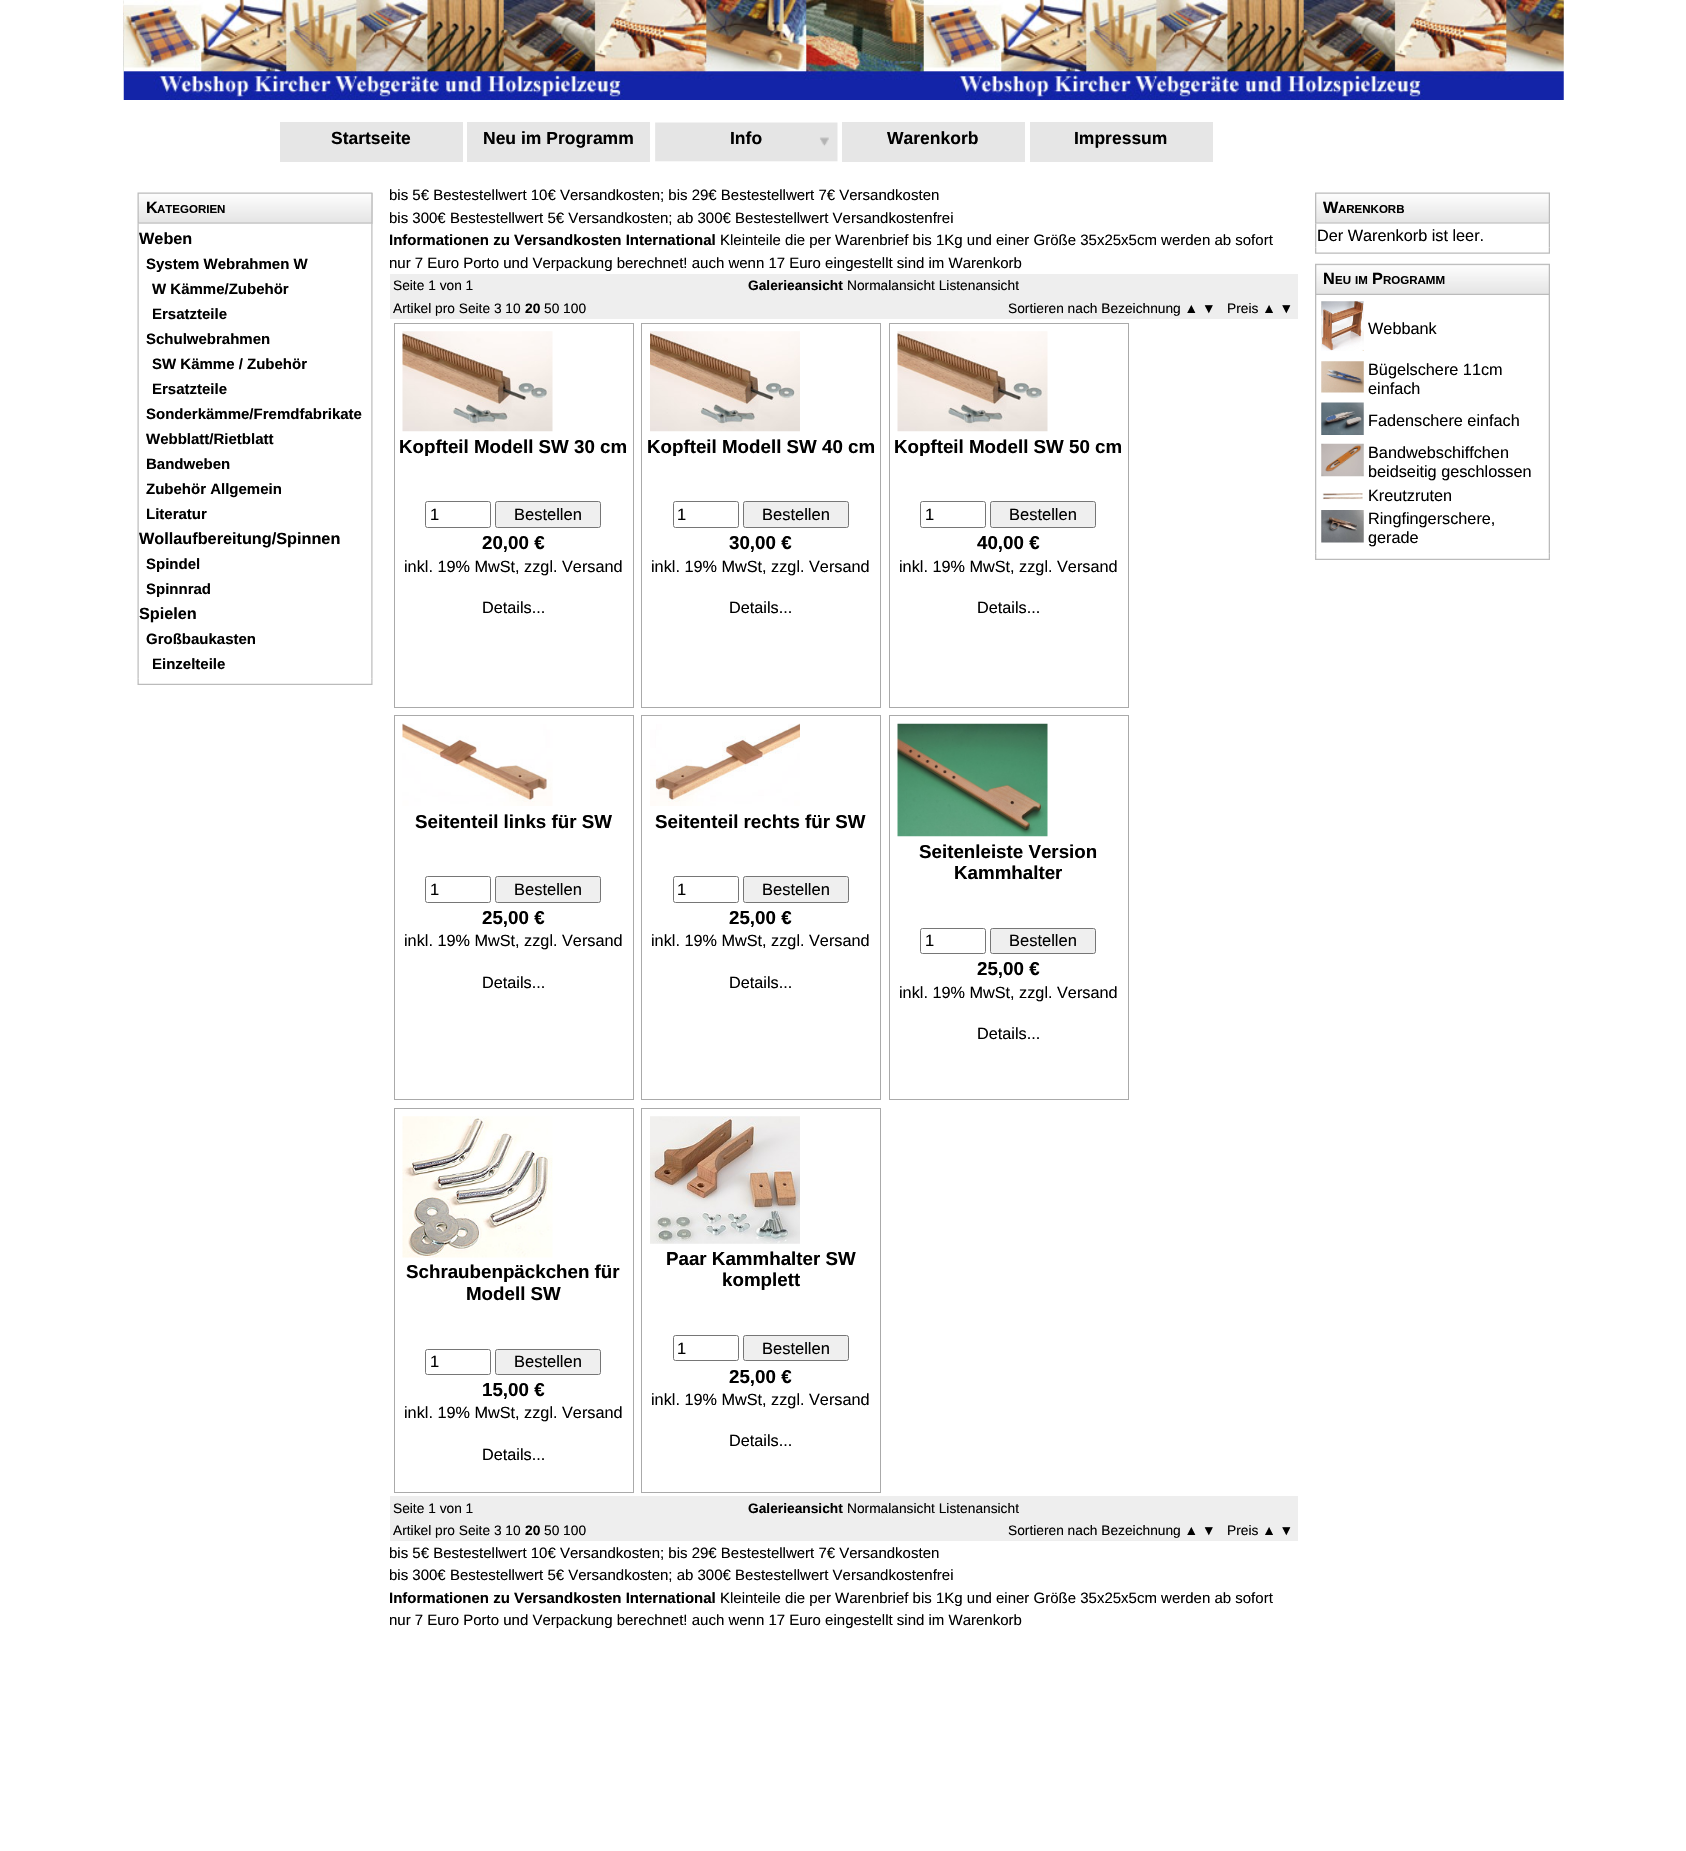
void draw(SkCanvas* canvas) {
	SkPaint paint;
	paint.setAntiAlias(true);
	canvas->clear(0xffffffff);
	canvas->drawImageRect(SkImages::DeferredFromEncodedData(SkData::MakeFromFileName("img1.png")), SkRect::MakeXYWH(123, 0, 1441, 100), SkSamplingOptions());
	paint.setColor(0xffe6e6e6);
	canvas->drawRect(SkRect::MakeXYWH(280, 122, 183, 40), paint);
	SkFont f1(fontMgr->matchFamilyStyle("Liberation Sans", SkFontStyle::Bold()), 17.5);
	f1.setSubpixel(true);
	paint.setColor(0xff000000);
	canvas->drawString("Startseite", 331, 144, f1, paint);
	paint.setColor(0xffe6e6e6);
	canvas->drawRect(SkRect::MakeXYWH(467, 122, 183, 40), paint);
	paint.setColor(0xff000000);
	canvas->drawString("Neu im Programm", 483, 144, f1, paint);
	canvas->drawImageRect(SkImages::DeferredFromEncodedData(SkData::MakeFromFileName("img2.png")), SkRect::MakeXYWH(655, 122, 183, 40), SkSamplingOptions());
	canvas->drawString("Info", 730, 144, f1, paint);
	paint.setColor(0xffe6e6e6);
	canvas->drawRect(SkRect::MakeXYWH(842, 122, 183, 40), paint);
	paint.setColor(0xff000000);
	canvas->drawString("Warenkorb", 887, 144, f1, paint);
	paint.setColor(0xffe6e6e6);
	canvas->drawRect(SkRect::MakeXYWH(1030, 122, 183, 40), paint);
	paint.setColor(0xff000000);
	canvas->drawString("Impressum", 1074, 144, f1, paint);
	paint.setColor(0xffdddddd);
	canvas->drawRect(SkRect::MakeXYWH(138, 193, 235, 31), paint);
	canvas->drawImageRect(SkImages::DeferredFromEncodedData(SkData::MakeFromFileName("img3.png")), SkRect::MakeXYWH(137, 192, 236, 32), SkSamplingOptions());
	SkFont f2(fontMgr->matchFamilyStyle("Liberation Sans", SkFontStyle::Bold()), 16.25);
	f2.setSubpixel(true);
	paint.setColor(0xff000000);
	canvas->drawString("K", 146, 213, f2, paint);
	SkFont f3(fontMgr->matchFamilyStyle("Liberation Sans", SkFontStyle::Bold()), 11.5);
	f3.setSubpixel(true);
	canvas->drawString("ATEGORIEN", 157, 213, f3, paint);
	canvas->drawImageRect(SkImages::DeferredFromEncodedData(SkData::MakeFromFileName("img4.png")), SkRect::MakeXYWH(137, 223, 236, 456), SkSamplingOptions());
	canvas->drawString("Weben", 139, 244, f2, paint);
	SkFont f4(fontMgr->matchFamilyStyle("Liberation Sans", SkFontStyle::Bold()), 15);
	f4.setSubpixel(true);
	canvas->drawString("System Webrahmen W", 146, 269, f4, paint);
	canvas->drawString("W Kämme/Zubehör", 152, 294, f4, paint);
	canvas->drawString("Ersatzteile", 152, 319, f4, paint);
	canvas->drawString("Schulwebrahmen", 146, 344, f4, paint);
	canvas->drawString("SW Kämme / Zubehör", 152, 369, f4, paint);
	canvas->drawString("Ersatzteile", 152, 394, f4, paint);
	canvas->drawString("Sonderkämme/Fremdfabrikate", 146, 419, f4, paint);
	canvas->drawString("Webblatt/Rietblatt", 146, 444, f4, paint);
	canvas->drawString("Bandweben", 146, 469, f4, paint);
	canvas->drawString("Zubehör Allgemein", 146, 494, f4, paint);
	canvas->drawString("Literatur", 146, 519, f4, paint);
	canvas->drawString("Wollaufbereitung/Spinnen", 139, 544, f2, paint);
	canvas->drawString("Spindel", 146, 569, f4, paint);
	canvas->drawString("Spinnrad", 146, 594, f4, paint);
	canvas->drawString("Spielen", 139, 619, f2, paint);
	canvas->drawString("Großbaukasten", 146, 644, f4, paint);
	canvas->drawString("Einzelteile", 152, 669, f4, paint);
	canvas->drawImageRect(SkImages::DeferredFromEncodedData(SkData::MakeFromFileName("img5.png")), SkRect::MakeXYWH(137, 678, 236, 7), SkSamplingOptions());
	SkFont f5(fontMgr->matchFamilyStyle("Liberation Sans", SkFontStyle::Normal()), 15);
	f5.setSubpixel(true);
	canvas->drawString("bis 5€ Bestestellwert 10€ Versandkosten; bis 29€ Bestestellwert 7€ Versandkosten", 389, 200, f5, paint);
	canvas->drawString("bis 300€ Bestestellwert 5€ Versandkosten; ab 300€ Bestestellwert Versandkostenfrei", 389, 223, f5, paint);
	canvas->drawString("Informationen zu Versandkosten International", 389, 245, f4, paint);
	canvas->drawString("Kleinteile die per Warenbrief bis 1Kg und einer Größe 35x25x5cm werden ab sofort", 720, 245, f5, paint);
	canvas->drawString("nur 7 Euro Porto und Verpackung berechnet! auch wenn 17 Euro eingestellt sind im Warenkorb", 389, 268, f5, paint);
	paint.setColor(0xffeeeeee);
	canvas->drawRect(SkRect::MakeXYWH(390, 274, 908, 45), paint);
	SkFont f6(fontMgr->matchFamilyStyle("Liberation Sans", SkFontStyle::Normal()), 13.75);
	f6.setSubpixel(true);
	paint.setColor(0xff000000);
	canvas->drawString("Seite 1 von 1", 393, 290, f6, paint);
	SkFont f7(fontMgr->matchFamilyStyle("Liberation Sans", SkFontStyle::Bold()), 13.75);
	f7.setSubpixel(true);
	canvas->drawString("Galerieansicht", 748, 290, f7, paint);
	canvas->drawString("Normalansicht Listenansicht", 847, 290, f6, paint);
	canvas->drawString("Artikel pro Seite 3 10", 393, 313, f6, paint);
	canvas->drawString("20", 525, 313, f7, paint);
	canvas->drawString("50 100", 544, 313, f6, paint);
	canvas->drawString("Sortieren nach Bezeichnung ▲ ▼", 1008, 313, f6, paint);
	canvas->drawString("Preis ▲ ▼", 1227, 313, f6, paint);
	paint.setStroke(true);
	paint.setStrokeWidth(1);
	paint.setColor(0xffaaaaaa);
	canvas->drawRect(SkRect::MakeXYWH(394.5, 323.5, 239, 384), paint);
	canvas->drawImageRect(SkImages::DeferredFromEncodedData(SkData::MakeFromFileName("img6.png")), SkRect::MakeXYWH(402, 331, 151, 101), SkSamplingOptions());
	canvas->save();
	canvas->clipRect(SkRect::MakeXYWH(399, 435, 230, 21));
	SkFont f8(fontMgr->matchFamilyStyle("Liberation Sans", SkFontStyle::Bold()), 18.75);
	f8.setSubpixel(true);
	paint.setStroke(false);
	paint.setColor(0xff000000);
	canvas->drawString("Kopfteil Modell SW 30 cm", 399, 453, f8, paint);
	canvas->restore();
	paint.setStroke(true);
	paint.setColor(0xff767676);
	canvas->drawRoundRect(SkRect::MakeXYWH(425.5, 501.5, 65, 26), 2, 2, paint);
	SkFont f9(fontMgr->matchFamilyStyle("Liberation Sans", SkFontStyle::Normal()), 16.5);
	f9.setSubpixel(true);
	paint.setStroke(false);
	paint.setColor(0xff000000);
	canvas->drawString("1", 430, 520, f9, paint);
	paint.setColor(0xffefefef);
	canvas->drawRoundRect(SkRect::MakeXYWH(495.5, 501.5, 105, 26), 2, 2, paint);
	paint.setStroke(true);
	paint.setColor(0xff767676);
	canvas->drawRoundRect(SkRect::MakeXYWH(495.5, 501.5, 105, 26), 2, 2, paint);
	paint.setStroke(false);
	paint.setColor(0xff000000);
	canvas->drawString("Bestellen", 514, 520, f9, paint);
	canvas->drawString("20,00 €", 482, 549, f8, paint);
	SkFont f10(fontMgr->matchFamilyStyle("Liberation Sans", SkFontStyle::Normal()), 16.25);
	f10.setSubpixel(true);
	canvas->drawString("inkl. 19% MwSt, zzgl. Versand", 404, 572, f10, paint);
	canvas->drawString("Details...", 482, 613, f10, paint);
	paint.setStroke(true);
	paint.setColor(0xffaaaaaa);
	canvas->drawRect(SkRect::MakeXYWH(641.5, 323.5, 239, 384), paint);
	canvas->drawImageRect(SkImages::DeferredFromEncodedData(SkData::MakeFromFileName("img7.png")), SkRect::MakeXYWH(650, 331, 150, 101), SkSamplingOptions());
	canvas->save();
	canvas->clipRect(SkRect::MakeXYWH(646, 435, 230, 21));
	paint.setStroke(false);
	paint.setColor(0xff000000);
	canvas->drawString("Kopfteil Modell SW 40 cm", 647, 453, f8, paint);
	canvas->restore();
	paint.setStroke(true);
	paint.setColor(0xff767676);
	canvas->drawRoundRect(SkRect::MakeXYWH(673.5, 501.5, 65, 26), 2, 2, paint);
	paint.setStroke(false);
	paint.setColor(0xff000000);
	canvas->drawString("1", 677, 520, f9, paint);
	paint.setColor(0xffefefef);
	canvas->drawRoundRect(SkRect::MakeXYWH(743.5, 501.5, 105, 26), 2, 2, paint);
	paint.setStroke(true);
	paint.setColor(0xff767676);
	canvas->drawRoundRect(SkRect::MakeXYWH(743.5, 501.5, 105, 26), 2, 2, paint);
	paint.setStroke(false);
	paint.setColor(0xff000000);
	canvas->drawString("Bestellen", 762, 520, f9, paint);
	canvas->drawString("30,00 €", 729, 549, f8, paint);
	canvas->drawString("inkl. 19% MwSt, zzgl. Versand", 651, 572, f10, paint);
	canvas->drawString("Details...", 729, 613, f10, paint);
	paint.setStroke(true);
	paint.setColor(0xffaaaaaa);
	canvas->drawRect(SkRect::MakeXYWH(889.5, 323.5, 239, 384), paint);
	canvas->drawImageRect(SkImages::DeferredFromEncodedData(SkData::MakeFromFileName("img8.png")), SkRect::MakeXYWH(897, 331, 151, 101), SkSamplingOptions());
	canvas->save();
	canvas->clipRect(SkRect::MakeXYWH(894, 435, 230, 21));
	paint.setStroke(false);
	paint.setColor(0xff000000);
	canvas->drawString("Kopfteil Modell SW 50 cm", 894, 453, f8, paint);
	canvas->restore();
	paint.setStroke(true);
	paint.setColor(0xff767676);
	canvas->drawRoundRect(SkRect::MakeXYWH(920.5, 501.5, 65, 26), 2, 2, paint);
	paint.setStroke(false);
	paint.setColor(0xff000000);
	canvas->drawString("1", 925, 520, f9, paint);
	paint.setColor(0xffefefef);
	canvas->drawRoundRect(SkRect::MakeXYWH(990.5, 501.5, 105, 26), 2, 2, paint);
	paint.setStroke(true);
	paint.setColor(0xff767676);
	canvas->drawRoundRect(SkRect::MakeXYWH(990.5, 501.5, 105, 26), 2, 2, paint);
	paint.setStroke(false);
	paint.setColor(0xff000000);
	canvas->drawString("Bestellen", 1009, 520, f9, paint);
	canvas->drawString("40,00 €", 977, 549, f8, paint);
	canvas->drawString("inkl. 19% MwSt, zzgl. Versand", 899, 572, f10, paint);
	canvas->drawString("Details...", 977, 613, f10, paint);
	paint.setStroke(true);
	paint.setColor(0xffaaaaaa);
	canvas->drawRect(SkRect::MakeXYWH(394.5, 715.5, 239, 384), paint);
	canvas->drawImageRect(SkImages::DeferredFromEncodedData(SkData::MakeFromFileName("img9.png")), SkRect::MakeXYWH(402, 723, 151, 83), SkSamplingOptions());
	paint.setStroke(false);
	paint.setColor(0xff000000);
	canvas->drawString("Seitenteil links für SW", 415, 828, f8, paint);
	paint.setStroke(true);
	paint.setColor(0xff767676);
	canvas->drawRoundRect(SkRect::MakeXYWH(425.5, 876.5, 65, 26), 2, 2, paint);
	paint.setStroke(false);
	paint.setColor(0xff000000);
	canvas->drawString("1", 430, 895, f9, paint);
	paint.setColor(0xffefefef);
	canvas->drawRoundRect(SkRect::MakeXYWH(495.5, 876.5, 105, 26), 2, 2, paint);
	paint.setStroke(true);
	paint.setColor(0xff767676);
	canvas->drawRoundRect(SkRect::MakeXYWH(495.5, 876.5, 105, 26), 2, 2, paint);
	paint.setStroke(false);
	paint.setColor(0xff000000);
	canvas->drawString("Bestellen", 514, 895, f9, paint);
	canvas->drawString("25,00 €", 482, 924, f8, paint);
	canvas->drawString("inkl. 19% MwSt, zzgl. Versand", 404, 946, f10, paint);
	canvas->drawString("Details...", 482, 988, f10, paint);
	paint.setStroke(true);
	paint.setColor(0xffaaaaaa);
	canvas->drawRect(SkRect::MakeXYWH(641.5, 715.5, 239, 384), paint);
	canvas->drawImageRect(SkImages::DeferredFromEncodedData(SkData::MakeFromFileName("img10.png")), SkRect::MakeXYWH(650, 723, 150, 83), SkSamplingOptions());
	paint.setStroke(false);
	paint.setColor(0xff000000);
	canvas->drawString("Seitenteil rechts für SW", 655, 828, f8, paint);
	paint.setStroke(true);
	paint.setColor(0xff767676);
	canvas->drawRoundRect(SkRect::MakeXYWH(673.5, 876.5, 65, 26), 2, 2, paint);
	paint.setStroke(false);
	paint.setColor(0xff000000);
	canvas->drawString("1", 677, 895, f9, paint);
	paint.setColor(0xffefefef);
	canvas->drawRoundRect(SkRect::MakeXYWH(743.5, 876.5, 105, 26), 2, 2, paint);
	paint.setStroke(true);
	paint.setColor(0xff767676);
	canvas->drawRoundRect(SkRect::MakeXYWH(743.5, 876.5, 105, 26), 2, 2, paint);
	paint.setStroke(false);
	paint.setColor(0xff000000);
	canvas->drawString("Bestellen", 762, 895, f9, paint);
	canvas->drawString("25,00 €", 729, 924, f8, paint);
	canvas->drawString("inkl. 19% MwSt, zzgl. Versand", 651, 946, f10, paint);
	canvas->drawString("Details...", 729, 988, f10, paint);
	paint.setStroke(true);
	paint.setColor(0xffaaaaaa);
	canvas->drawRect(SkRect::MakeXYWH(889.5, 715.5, 239, 384), paint);
	canvas->drawImageRect(SkImages::DeferredFromEncodedData(SkData::MakeFromFileName("img11.png")), SkRect::MakeXYWH(897, 723, 151, 114), SkSamplingOptions());
	paint.setStroke(false);
	paint.setColor(0xff000000);
	canvas->drawString("Seitenleiste Version", 919, 858, f8, paint);
	canvas->drawString("Kammhalter", 954, 879, f8, paint);
	paint.setStroke(true);
	paint.setColor(0xff767676);
	canvas->drawRoundRect(SkRect::MakeXYWH(920.5, 928.5, 65, 25), 2, 2, paint);
	paint.setStroke(false);
	paint.setColor(0xff000000);
	canvas->drawString("1", 925, 946, f9, paint);
	paint.setColor(0xffefefef);
	canvas->drawRoundRect(SkRect::MakeXYWH(990.5, 928.5, 105, 25), 2, 2, paint);
	paint.setStroke(true);
	paint.setColor(0xff767676);
	canvas->drawRoundRect(SkRect::MakeXYWH(990.5, 928.5, 105, 25), 2, 2, paint);
	paint.setStroke(false);
	paint.setColor(0xff000000);
	canvas->drawString("Bestellen", 1009, 946, f9, paint);
	canvas->drawString("25,00 €", 977, 975, f8, paint);
	canvas->drawString("inkl. 19% MwSt, zzgl. Versand", 899, 998, f10, paint);
	canvas->drawString("Details...", 977, 1039, f10, paint);
	paint.setStroke(true);
	paint.setColor(0xffaaaaaa);
	canvas->drawRect(SkRect::MakeXYWH(394.5, 1108.5, 239, 384), paint);
	canvas->drawImageRect(SkImages::DeferredFromEncodedData(SkData::MakeFromFileName("img12.png")), SkRect::MakeXYWH(402, 1116, 151, 142), SkSamplingOptions());
	paint.setStroke(false);
	paint.setColor(0xff000000);
	canvas->drawString("Schraubenpäckchen für", 406, 1278, f8, paint);
	canvas->drawString("Modell SW", 466, 1300, f8, paint);
	paint.setStroke(true);
	paint.setColor(0xff767676);
	canvas->drawRoundRect(SkRect::MakeXYWH(425.5, 1349.5, 65, 25), 2, 2, paint);
	paint.setStroke(false);
	paint.setColor(0xff000000);
	canvas->drawString("1", 430, 1367, f9, paint);
	paint.setColor(0xffefefef);
	canvas->drawRoundRect(SkRect::MakeXYWH(495.5, 1349.5, 105, 25), 2, 2, paint);
	paint.setStroke(true);
	paint.setColor(0xff767676);
	canvas->drawRoundRect(SkRect::MakeXYWH(495.5, 1349.5, 105, 25), 2, 2, paint);
	paint.setStroke(false);
	paint.setColor(0xff000000);
	canvas->drawString("Bestellen", 514, 1367, f9, paint);
	canvas->drawString("15,00 €", 482, 1396, f8, paint);
	canvas->drawString("inkl. 19% MwSt, zzgl. Versand", 404, 1418, f10, paint);
	canvas->drawString("Details...", 482, 1460, f10, paint);
	paint.setStroke(true);
	paint.setColor(0xffaaaaaa);
	canvas->drawRect(SkRect::MakeXYWH(641.5, 1108.5, 239, 384), paint);
	canvas->drawImageRect(SkImages::DeferredFromEncodedData(SkData::MakeFromFileName("img13.png")), SkRect::MakeXYWH(650, 1116, 150, 128), SkSamplingOptions());
	paint.setStroke(false);
	paint.setColor(0xff000000);
	canvas->drawString("Paar Kammhalter SW", 666, 1265, f8, paint);
	canvas->drawString("komplett", 722, 1286, f8, paint);
	paint.setStroke(true);
	paint.setColor(0xff767676);
	canvas->drawRoundRect(SkRect::MakeXYWH(673.5, 1335.5, 65, 25), 2, 2, paint);
	paint.setStroke(false);
	paint.setColor(0xff000000);
	canvas->drawString("1", 677, 1354, f9, paint);
	paint.setColor(0xffefefef);
	canvas->drawRoundRect(SkRect::MakeXYWH(743.5, 1335.5, 105, 25), 2, 2, paint);
	paint.setStroke(true);
	paint.setColor(0xff767676);
	canvas->drawRoundRect(SkRect::MakeXYWH(743.5, 1335.5, 105, 25), 2, 2, paint);
	paint.setStroke(false);
	paint.setColor(0xff000000);
	canvas->drawString("Bestellen", 762, 1354, f9, paint);
	canvas->drawString("25,00 €", 729, 1383, f8, paint);
	canvas->drawString("inkl. 19% MwSt, zzgl. Versand", 651, 1405, f10, paint);
	canvas->drawString("Details...", 729, 1446, f10, paint);
	paint.setColor(0xffeeeeee);
	canvas->drawRect(SkRect::MakeXYWH(390, 1496, 908, 45), paint);
	paint.setColor(0xff000000);
	canvas->drawString("Seite 1 von 1", 393, 1513, f6, paint);
	canvas->drawString("Galerieansicht", 748, 1513, f7, paint);
	canvas->drawString("Normalansicht Listenansicht", 847, 1513, f6, paint);
	canvas->drawString("Artikel pro Seite 3 10", 393, 1535, f6, paint);
	canvas->drawString("20", 525, 1535, f7, paint);
	canvas->drawString("50 100", 544, 1535, f6, paint);
	canvas->drawString("Sortieren nach Bezeichnung ▲ ▼", 1008, 1535, f6, paint);
	canvas->drawString("Preis ▲ ▼", 1227, 1535, f6, paint);
	canvas->drawString("bis 5€ Bestestellwert 10€ Versandkosten; bis 29€ Bestestellwert 7€ Versandkosten", 389, 1558, f5, paint);
	canvas->drawString("bis 300€ Bestestellwert 5€ Versandkosten; ab 300€ Bestestellwert Versandkostenfrei", 389, 1580, f5, paint);
	canvas->drawString("Informationen zu Versandkosten International", 389, 1603, f4, paint);
	canvas->drawString("Kleinteile die per Warenbrief bis 1Kg und einer Größe 35x25x5cm werden ab sofort", 720, 1603, f5, paint);
	canvas->drawString("nur 7 Euro Porto und Verpackung berechnet! auch wenn 17 Euro eingestellt sind im Warenkorb", 389, 1625, f5, paint);
	canvas->drawImageRect(SkImages::DeferredFromEncodedData(SkData::MakeFromFileName("img14.png")), SkRect::MakeXYWH(1315, 192, 235, 32), SkSamplingOptions());
	canvas->drawString("W", 1323, 213, f2, paint);
	canvas->drawString("ARENKORB", 1338, 213, f3, paint);
	canvas->drawImageRect(SkImages::DeferredFromEncodedData(SkData::MakeFromFileName("img15.png")), SkRect::MakeXYWH(1315, 223, 235, 25), SkSamplingOptions());
	canvas->drawString("Der Warenkorb ist leer.", 1317, 241, f10, paint);
	canvas->drawImageRect(SkImages::DeferredFromEncodedData(SkData::MakeFromFileName("img16.png")), SkRect::MakeXYWH(1315, 247, 235, 7), SkSamplingOptions());
	canvas->drawImageRect(SkImages::DeferredFromEncodedData(SkData::MakeFromFileName("img17.png")), SkRect::MakeXYWH(1315, 263, 235, 32), SkSamplingOptions());
	canvas->drawString("N", 1323, 284, f2, paint);
	canvas->drawString("EU", 1335, 284, f3, paint);
	canvas->drawString("IM", 1355, 284, f3, paint);
	canvas->drawString("P", 1372, 284, f2, paint);
	canvas->drawString("ROGRAMM", 1383, 284, f3, paint);
	canvas->drawImageRect(SkImages::DeferredFromEncodedData(SkData::MakeFromFileName("img18.png")), SkRect::MakeXYWH(1315, 295, 235, 259), SkSamplingOptions());
	canvas->drawImageRect(SkImages::DeferredFromEncodedData(SkData::MakeFromFileName("img19.png")), SkRect::MakeXYWH(1321, 301, 43, 50), SkSamplingOptions());
	canvas->drawString("Webbank", 1368, 334, f10, paint);
	canvas->drawImageRect(SkImages::DeferredFromEncodedData(SkData::MakeFromFileName("img20.png")), SkRect::MakeXYWH(1321, 361, 43, 32), SkSamplingOptions());
	canvas->drawString("Bügelschere 11cm", 1368, 375, f10, paint);
	canvas->drawString("einfach", 1368, 394, f10, paint);
	canvas->drawImageRect(SkImages::DeferredFromEncodedData(SkData::MakeFromFileName("img21.png")), SkRect::MakeXYWH(1321, 402, 43, 33), SkSamplingOptions());
	canvas->drawString("Fadenschere einfach", 1368, 426, f10, paint);
	canvas->drawImageRect(SkImages::DeferredFromEncodedData(SkData::MakeFromFileName("img22.png")), SkRect::MakeXYWH(1321, 443, 43, 34), SkSamplingOptions());
	canvas->drawString("Bandwebschiffchen", 1368, 458, f10, paint);
	canvas->drawString("beidseitig geschlossen", 1368, 477, f10, paint);
	canvas->drawImageRect(SkImages::DeferredFromEncodedData(SkData::MakeFromFileName("img23.png")), SkRect::MakeXYWH(1322, 493, 41, 7), SkSamplingOptions());
	canvas->drawString("Kreutzruten", 1368, 501, f10, paint);
	canvas->drawImageRect(SkImages::DeferredFromEncodedData(SkData::MakeFromFileName("img24.png")), SkRect::MakeXYWH(1321, 510, 43, 33), SkSamplingOptions());
	canvas->drawString("Ringfingerschere,", 1368, 524, f10, paint);
	canvas->drawString("gerade", 1368, 543, f10, paint);
	canvas->drawImageRect(SkImages::DeferredFromEncodedData(SkData::MakeFromFileName("img25.png")), SkRect::MakeXYWH(1315, 553, 235, 7), SkSamplingOptions());
}
